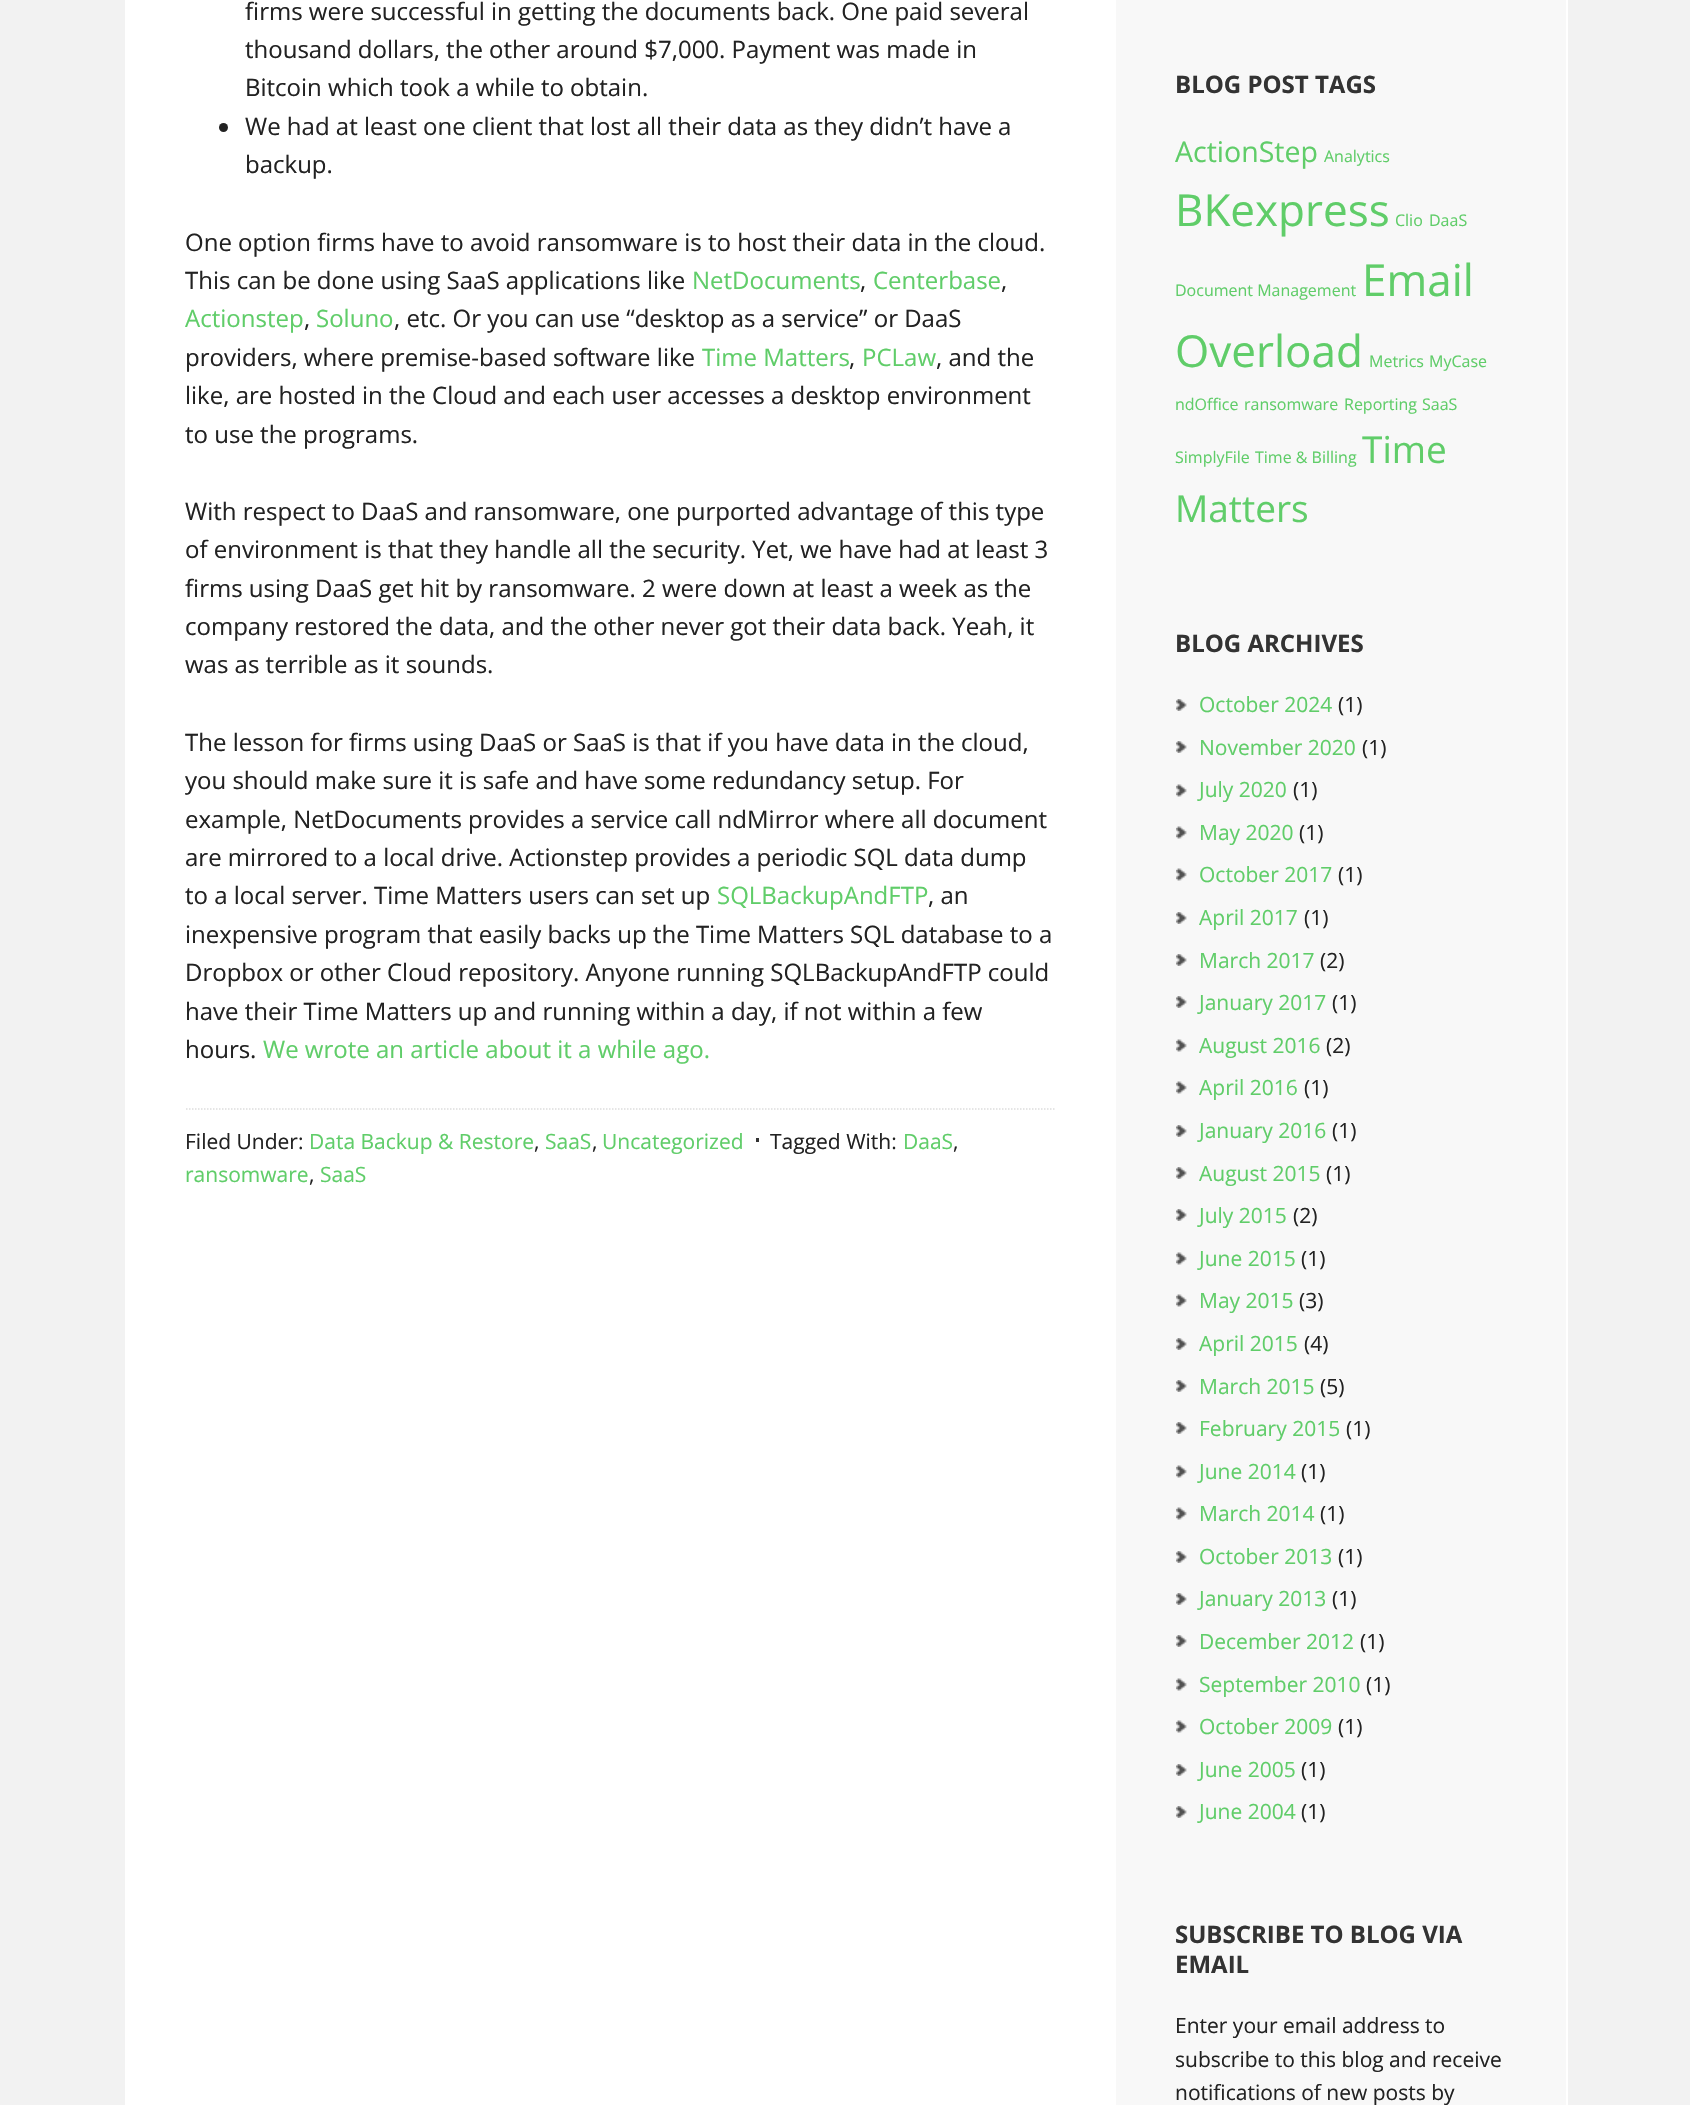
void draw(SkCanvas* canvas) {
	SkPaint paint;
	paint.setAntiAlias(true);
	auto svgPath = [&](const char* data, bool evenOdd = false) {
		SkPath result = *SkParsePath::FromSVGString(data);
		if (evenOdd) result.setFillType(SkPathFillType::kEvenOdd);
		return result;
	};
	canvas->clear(0xfff2f2f2);
	paint.setStroke(true);
	paint.setStrokeWidth(2);
	paint.setColor(0xffffffff);
	canvas->drawRect(SkRect::MakeXYWH(126, -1, 1441, 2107), paint);
	paint.setStroke(false);
	canvas->drawRect(SkRect::MakeXYWH(127, 0, 989, 2105), paint);
	SkFont f1(fontMgr->matchFamilyStyle("Open Sans", SkFontStyle::Normal()), 24);
	f1.setSubpixel(true);
	paint.setColor(0xff222222);
	canvas->drawString("firms were successful in getting the documents back. One paid several", 245, 20, f1, paint);
	canvas->drawString("thousand dollars, the other around $7,000. Payment was made in", 245, 58, f1, paint);
	canvas->drawString("Bitcoin which took a while to obtain.", 245, 96, f1, paint);
	canvas->drawCircle(223.5, 127.5, 4.5, paint);
	canvas->drawString("We had at least one client that lost all their data as they didn’t have a", 245, 135, f1, paint);
	canvas->drawString("backup.", 245, 173, f1, paint);
	canvas->drawString("One option firms have to avoid ransomware is to host their data in the cloud.", 185, 251, f1, paint);
	canvas->drawString("This can be done using SaaS applications like", 185, 289, f1, paint);
	paint.setColor(0xff60cd69);
	canvas->drawString("NetDocuments", 692, 289, f1, paint);
	paint.setColor(0xff222222);
	canvas->drawString(",", 860, 289, f1, paint);
	paint.setColor(0xff60cd69);
	canvas->drawString("Centerbase", 873, 289, f1, paint);
	paint.setColor(0xff222222);
	canvas->drawString(",", 1001, 289, f1, paint);
	paint.setColor(0xff60cd69);
	canvas->drawString("Actionstep", 185, 327, f1, paint);
	paint.setColor(0xff222222);
	canvas->drawString(",", 304, 327, f1, paint);
	paint.setColor(0xff60cd69);
	canvas->drawString("Soluno", 316, 327, f1, paint);
	paint.setColor(0xff222222);
	canvas->drawString(", etc. Or you can use “desktop as a service” or DaaS", 394, 327, f1, paint);
	canvas->drawString("providers, where premise-based software like", 185, 366, f1, paint);
	paint.setColor(0xff60cd69);
	canvas->drawString("Time Matters", 702, 366, f1, paint);
	paint.setColor(0xff222222);
	canvas->drawString(",", 849, 366, f1, paint);
	paint.setColor(0xff60cd69);
	canvas->drawString("PCLaw", 862, 366, f1, paint);
	paint.setColor(0xff222222);
	canvas->drawString(", and the", 936, 366, f1, paint);
	canvas->drawString("like, are hosted in the Cloud and each user accesses a desktop environment", 185, 404, f1, paint);
	canvas->drawString("to use the programs.", 185, 443, f1, paint);
	canvas->drawString("With respect to DaaS and ransomware, one purported advantage of this type", 185, 520, f1, paint);
	canvas->drawString("of environment is that they handle all the security. Yet, we have had at least 3", 185, 558, f1, paint);
	canvas->drawString("firms using DaaS get hit by ransomware. 2 were down at least a week as the", 185, 597, f1, paint);
	canvas->drawString("company restored the data, and the other never got their data back. Yeah, it", 185, 635, f1, paint);
	canvas->drawString("was as terrible as it sounds.", 185, 673, f1, paint);
	canvas->drawString("The lesson for firms using DaaS or SaaS is that if you have data in the cloud,", 185, 751, f1, paint);
	canvas->drawString("you should make sure it is safe and have some redundancy setup. For", 185, 789, f1, paint);
	canvas->drawString("example, NetDocuments provides a service call ndMirror where all document", 185, 828, f1, paint);
	canvas->drawString("are mirrored to a local drive. Actionstep provides a periodic SQL data dump", 185, 866, f1, paint);
	canvas->drawString("to a local server. Time Matters users can set up", 185, 904, f1, paint);
	paint.setColor(0xff60cd69);
	canvas->drawString("SQLBackupAndFTP", 717, 904, f1, paint);
	paint.setColor(0xff222222);
	canvas->drawString(", an", 928, 904, f1, paint);
	canvas->drawString("inexpensive program that easily backs up the Time Matters SQL database to a", 185, 943, f1, paint);
	canvas->drawString("Dropbox or other Cloud repository. Anyone running SQLBackupAndFTP could", 185, 981, f1, paint);
	canvas->drawString("have their Time Matters up and running within a day, if not within a few", 185, 1020, f1, paint);
	canvas->drawString("hours.", 185, 1058, f1, paint);
	paint.setColor(0xff60cd69);
	canvas->drawString("We wrote an article about it a while ago.", 263, 1058, f1, paint);
	paint.setStroke(true);
	paint.setStrokeWidth(1.5);
	paint.setColor(0xffdddddd);
	paint.setPathEffect(SkDashPathEffect::Make({{1.5f, 1.5f}}, 0));
	canvas->drawPath(svgPath("M186 1109H1056"), paint);
	paint.setPathEffect(nullptr);
	SkFont f2(fontMgr->matchFamilyStyle("Open Sans", SkFontStyle::Normal()), 21);
	f2.setSubpixel(true);
	paint.setStroke(false);
	paint.setColor(0xff222222);
	canvas->drawString("Filed Under:", 185, 1149, f2, paint);
	paint.setColor(0xff60cd69);
	canvas->drawString("Data Backup & Restore", 309, 1149, f2, paint);
	paint.setColor(0xff222222);
	canvas->drawString(",", 534, 1149, f2, paint);
	paint.setColor(0xff60cd69);
	canvas->drawString("SaaS", 545, 1149, f2, paint);
	paint.setColor(0xff222222);
	canvas->drawString(",", 592, 1149, f2, paint);
	paint.setColor(0xff60cd69);
	canvas->drawString("Uncategorized", 602, 1149, f2, paint);
	paint.setColor(0xff222222);
	canvas->drawString("Tagged With:", 770, 1149, f2, paint);
	paint.setColor(0xff333333);
	canvas->drawRect(SkRect::MakeXYWH(756, 1138, 3, 4), paint);
	paint.setColor(0xff60cd69);
	canvas->drawString("DaaS", 903, 1149, f2, paint);
	paint.setColor(0xff222222);
	canvas->drawString(",", 953, 1149, f2, paint);
	paint.setColor(0xff60cd69);
	canvas->drawString("ransomware", 185, 1182, f2, paint);
	paint.setColor(0xff222222);
	canvas->drawString(",", 309, 1182, f2, paint);
	paint.setColor(0xff60cd69);
	canvas->drawString("SaaS", 320, 1182, f2, paint);
	paint.setColor(0xfff8f8f8);
	canvas->drawRect(SkRect::MakeXYWH(1116, 0, 450, 2105), paint);
	SkFont f3(fontMgr->matchFamilyStyle("Open Sans", SkFontStyle::Bold()), 24);
	f3.setSubpixel(true);
	paint.setColor(0xff333333);
	canvas->drawString("BLOG POST TAGS", 1175, 93, f3, paint);
	SkFont f4(fontMgr->matchFamilyStyle("Open Sans", SkFontStyle::Normal()), 28.5);
	f4.setSubpixel(true);
	paint.setColor(0xff60cd69);
	canvas->drawString("ActionStep", 1175, 162, f4, paint);
	SkFont f5(fontMgr->matchFamilyStyle("Open Sans", SkFontStyle::Normal()), 16);
	f5.setSubpixel(true);
	canvas->drawString("Analytics", 1324, 162, f5, paint);
	SkFont f6(fontMgr->matchFamilyStyle("Open Sans", SkFontStyle::Normal()), 44);
	f6.setSubpixel(true);
	canvas->drawString("BKexpress", 1175, 226, f6, paint);
	canvas->drawString("Clio", 1395, 226, f5, paint);
	canvas->drawString("DaaS", 1429, 226, f5, paint);
	canvas->drawString("Document Management", 1175, 296, f5, paint);
	canvas->drawString("Email", 1362, 296, f6, paint);
	canvas->drawString("Overload", 1175, 367, f6, paint);
	canvas->drawString("Metrics", 1369, 367, f5, paint);
	canvas->drawString("MyCase", 1429, 367, f5, paint);
	canvas->drawString("ndOffice", 1175, 410, f5, paint);
	canvas->drawString("ransomware", 1244, 410, f5, paint);
	canvas->drawString("Reporting", 1344, 410, f5, paint);
	canvas->drawString("SaaS", 1422, 410, f5, paint);
	canvas->drawString("SimplyFile", 1175, 463, f5, paint);
	canvas->drawString("Time & Billing", 1255, 463, f5, paint);
	SkFont f7(fontMgr->matchFamilyStyle("Open Sans", SkFontStyle::Normal()), 37);
	f7.setSubpixel(true);
	canvas->drawString("Time", 1362, 463, f7, paint);
	canvas->drawString("Matters", 1175, 522, f7, paint);
	paint.setColor(0xff333333);
	canvas->drawString("BLOG ARCHIVES", 1175, 652, f3, paint);
	canvas->drawImageRect(SkImages::DeferredFromEncodedData(SkData::MakeFromFileName("img1.png")), SkRect::MakeXYWH(1176, 699, 11, 12), SkSamplingOptions());
	paint.setColor(0xff60cd69);
	canvas->drawString("October 2024", 1199, 712, f2, paint);
	paint.setColor(0xff222222);
	canvas->drawString("(1)", 1338, 712, f2, paint);
	canvas->drawImageRect(SkImages::DeferredFromEncodedData(SkData::MakeFromFileName("img1.png")), SkRect::MakeXYWH(1176, 741, 11, 12), SkSamplingOptions());
	paint.setColor(0xff60cd69);
	canvas->drawString("November 2020", 1199, 755, f2, paint);
	paint.setColor(0xff222222);
	canvas->drawString("(1)", 1362, 755, f2, paint);
	canvas->drawImageRect(SkImages::DeferredFromEncodedData(SkData::MakeFromFileName("img2.png")), SkRect::MakeXYWH(1176, 784, 11, 13), SkSamplingOptions());
	paint.setColor(0xff60cd69);
	canvas->drawString("July 2020", 1199, 797, f2, paint);
	paint.setColor(0xff222222);
	canvas->drawString("(1)", 1293, 797, f2, paint);
	canvas->drawImageRect(SkImages::DeferredFromEncodedData(SkData::MakeFromFileName("img2.png")), SkRect::MakeXYWH(1176, 826, 11, 13), SkSamplingOptions());
	paint.setColor(0xff60cd69);
	canvas->drawString("May 2020", 1199, 840, f2, paint);
	paint.setColor(0xff222222);
	canvas->drawString("(1)", 1299, 840, f2, paint);
	canvas->drawImageRect(SkImages::DeferredFromEncodedData(SkData::MakeFromFileName("img2.png")), SkRect::MakeXYWH(1176, 868, 11, 13), SkSamplingOptions());
	paint.setColor(0xff60cd69);
	canvas->drawString("October 2017", 1199, 882, f2, paint);
	paint.setColor(0xff222222);
	canvas->drawString("(1)", 1338, 882, f2, paint);
	canvas->drawImageRect(SkImages::DeferredFromEncodedData(SkData::MakeFromFileName("img1.png")), SkRect::MakeXYWH(1176, 912, 11, 12), SkSamplingOptions());
	paint.setColor(0xff60cd69);
	canvas->drawString("April 2017", 1199, 925, f2, paint);
	paint.setColor(0xff222222);
	canvas->drawString("(1)", 1304, 925, f2, paint);
	canvas->drawImageRect(SkImages::DeferredFromEncodedData(SkData::MakeFromFileName("img1.png")), SkRect::MakeXYWH(1176, 954, 11, 12), SkSamplingOptions());
	paint.setColor(0xff60cd69);
	canvas->drawString("March 2017", 1199, 968, f2, paint);
	paint.setColor(0xff222222);
	canvas->drawString("(2)", 1320, 968, f2, paint);
	canvas->drawImageRect(SkImages::DeferredFromEncodedData(SkData::MakeFromFileName("img1.png")), SkRect::MakeXYWH(1176, 996, 11, 12), SkSamplingOptions());
	paint.setColor(0xff60cd69);
	canvas->drawString("January 2017", 1199, 1010, f2, paint);
	paint.setColor(0xff222222);
	canvas->drawString("(1)", 1332, 1010, f2, paint);
	canvas->drawImageRect(SkImages::DeferredFromEncodedData(SkData::MakeFromFileName("img2.png")), SkRect::MakeXYWH(1176, 1039, 11, 13), SkSamplingOptions());
	paint.setColor(0xff60cd69);
	canvas->drawString("August 2016", 1199, 1053, f2, paint);
	paint.setColor(0xff222222);
	canvas->drawString("(2)", 1326, 1053, f2, paint);
	canvas->drawImageRect(SkImages::DeferredFromEncodedData(SkData::MakeFromFileName("img2.png")), SkRect::MakeXYWH(1176, 1081, 11, 13), SkSamplingOptions());
	paint.setColor(0xff60cd69);
	canvas->drawString("April 2016", 1199, 1095, f2, paint);
	paint.setColor(0xff222222);
	canvas->drawString("(1)", 1304, 1095, f2, paint);
	canvas->drawImageRect(SkImages::DeferredFromEncodedData(SkData::MakeFromFileName("img1.png")), SkRect::MakeXYWH(1176, 1125, 11, 12), SkSamplingOptions());
	paint.setColor(0xff60cd69);
	canvas->drawString("January 2016", 1199, 1138, f2, paint);
	paint.setColor(0xff222222);
	canvas->drawString("(1)", 1332, 1138, f2, paint);
	canvas->drawImageRect(SkImages::DeferredFromEncodedData(SkData::MakeFromFileName("img1.png")), SkRect::MakeXYWH(1176, 1167, 11, 12), SkSamplingOptions());
	paint.setColor(0xff60cd69);
	canvas->drawString("August 2015", 1199, 1181, f2, paint);
	paint.setColor(0xff222222);
	canvas->drawString("(1)", 1326, 1181, f2, paint);
	canvas->drawImageRect(SkImages::DeferredFromEncodedData(SkData::MakeFromFileName("img1.png")), SkRect::MakeXYWH(1176, 1209, 11, 12), SkSamplingOptions());
	paint.setColor(0xff60cd69);
	canvas->drawString("July 2015", 1199, 1223, f2, paint);
	paint.setColor(0xff222222);
	canvas->drawString("(2)", 1293, 1223, f2, paint);
	canvas->drawImageRect(SkImages::DeferredFromEncodedData(SkData::MakeFromFileName("img2.png")), SkRect::MakeXYWH(1176, 1252, 11, 13), SkSamplingOptions());
	paint.setColor(0xff60cd69);
	canvas->drawString("June 2015", 1199, 1266, f2, paint);
	paint.setColor(0xff222222);
	canvas->drawString("(1)", 1301, 1266, f2, paint);
	canvas->drawImageRect(SkImages::DeferredFromEncodedData(SkData::MakeFromFileName("img2.png")), SkRect::MakeXYWH(1176, 1294, 11, 13), SkSamplingOptions());
	paint.setColor(0xff60cd69);
	canvas->drawString("May 2015", 1199, 1308, f2, paint);
	paint.setColor(0xff222222);
	canvas->drawString("(3)", 1299, 1308, f2, paint);
	canvas->drawImageRect(SkImages::DeferredFromEncodedData(SkData::MakeFromFileName("img1.png")), SkRect::MakeXYWH(1176, 1338, 11, 12), SkSamplingOptions());
	paint.setColor(0xff60cd69);
	canvas->drawString("April 2015", 1199, 1351, f2, paint);
	paint.setColor(0xff222222);
	canvas->drawString("(4)", 1304, 1351, f2, paint);
	canvas->drawImageRect(SkImages::DeferredFromEncodedData(SkData::MakeFromFileName("img1.png")), SkRect::MakeXYWH(1176, 1380, 11, 12), SkSamplingOptions());
	paint.setColor(0xff60cd69);
	canvas->drawString("March 2015", 1199, 1394, f2, paint);
	paint.setColor(0xff222222);
	canvas->drawString("(5)", 1320, 1394, f2, paint);
	canvas->drawImageRect(SkImages::DeferredFromEncodedData(SkData::MakeFromFileName("img1.png")), SkRect::MakeXYWH(1176, 1422, 11, 12), SkSamplingOptions());
	paint.setColor(0xff60cd69);
	canvas->drawString("February 2015", 1199, 1436, f2, paint);
	paint.setColor(0xff222222);
	canvas->drawString("(1)", 1346, 1436, f2, paint);
	canvas->drawImageRect(SkImages::DeferredFromEncodedData(SkData::MakeFromFileName("img2.png")), SkRect::MakeXYWH(1176, 1465, 11, 13), SkSamplingOptions());
	paint.setColor(0xff60cd69);
	canvas->drawString("June 2014", 1199, 1479, f2, paint);
	paint.setColor(0xff222222);
	canvas->drawString("(1)", 1301, 1479, f2, paint);
	canvas->drawImageRect(SkImages::DeferredFromEncodedData(SkData::MakeFromFileName("img2.png")), SkRect::MakeXYWH(1176, 1507, 11, 13), SkSamplingOptions());
	paint.setColor(0xff60cd69);
	canvas->drawString("March 2014", 1199, 1521, f2, paint);
	paint.setColor(0xff222222);
	canvas->drawString("(1)", 1320, 1521, f2, paint);
	canvas->drawImageRect(SkImages::DeferredFromEncodedData(SkData::MakeFromFileName("img1.png")), SkRect::MakeXYWH(1176, 1551, 11, 12), SkSamplingOptions());
	paint.setColor(0xff60cd69);
	canvas->drawString("October 2013", 1199, 1564, f2, paint);
	paint.setColor(0xff222222);
	canvas->drawString("(1)", 1338, 1564, f2, paint);
	canvas->drawImageRect(SkImages::DeferredFromEncodedData(SkData::MakeFromFileName("img1.png")), SkRect::MakeXYWH(1176, 1593, 11, 12), SkSamplingOptions());
	paint.setColor(0xff60cd69);
	canvas->drawString("January 2013", 1199, 1606, f2, paint);
	paint.setColor(0xff222222);
	canvas->drawString("(1)", 1332, 1606, f2, paint);
	canvas->drawImageRect(SkImages::DeferredFromEncodedData(SkData::MakeFromFileName("img1.png")), SkRect::MakeXYWH(1176, 1635, 11, 12), SkSamplingOptions());
	paint.setColor(0xff60cd69);
	canvas->drawString("December 2012", 1199, 1649, f2, paint);
	paint.setColor(0xff222222);
	canvas->drawString("(1)", 1360, 1649, f2, paint);
	canvas->drawImageRect(SkImages::DeferredFromEncodedData(SkData::MakeFromFileName("img2.png")), SkRect::MakeXYWH(1176, 1678, 11, 13), SkSamplingOptions());
	paint.setColor(0xff60cd69);
	canvas->drawString("September 2010", 1199, 1692, f2, paint);
	paint.setColor(0xff222222);
	canvas->drawString("(1)", 1366, 1692, f2, paint);
	canvas->drawImageRect(SkImages::DeferredFromEncodedData(SkData::MakeFromFileName("img2.png")), SkRect::MakeXYWH(1176, 1720, 11, 13), SkSamplingOptions());
	paint.setColor(0xff60cd69);
	canvas->drawString("October 2009", 1199, 1734, f2, paint);
	paint.setColor(0xff222222);
	canvas->drawString("(1)", 1338, 1734, f2, paint);
	canvas->drawImageRect(SkImages::DeferredFromEncodedData(SkData::MakeFromFileName("img1.png")), SkRect::MakeXYWH(1176, 1764, 11, 12), SkSamplingOptions());
	paint.setColor(0xff60cd69);
	canvas->drawString("June 2005", 1199, 1777, f2, paint);
	paint.setColor(0xff222222);
	canvas->drawString("(1)", 1301, 1777, f2, paint);
	canvas->drawImageRect(SkImages::DeferredFromEncodedData(SkData::MakeFromFileName("img1.png")), SkRect::MakeXYWH(1176, 1806, 11, 12), SkSamplingOptions());
	paint.setColor(0xff60cd69);
	canvas->drawString("June 2004", 1199, 1819, f2, paint);
	paint.setColor(0xff222222);
	canvas->drawString("(1)", 1301, 1819, f2, paint);
	paint.setColor(0xff333333);
	canvas->drawString("SUBSCRIBE TO BLOG VIA", 1175, 1943, f3, paint);
	canvas->drawString("EMAIL", 1175, 1973, f3, paint);
	paint.setColor(0xff222222);
	canvas->drawString("Enter your email address to", 1175, 2033, f2, paint);
	canvas->drawString("subscribe to this blog and receive", 1175, 2067, f2, paint);
	canvas->drawString("notifications of new posts by", 1175, 2100, f2, paint);
}
